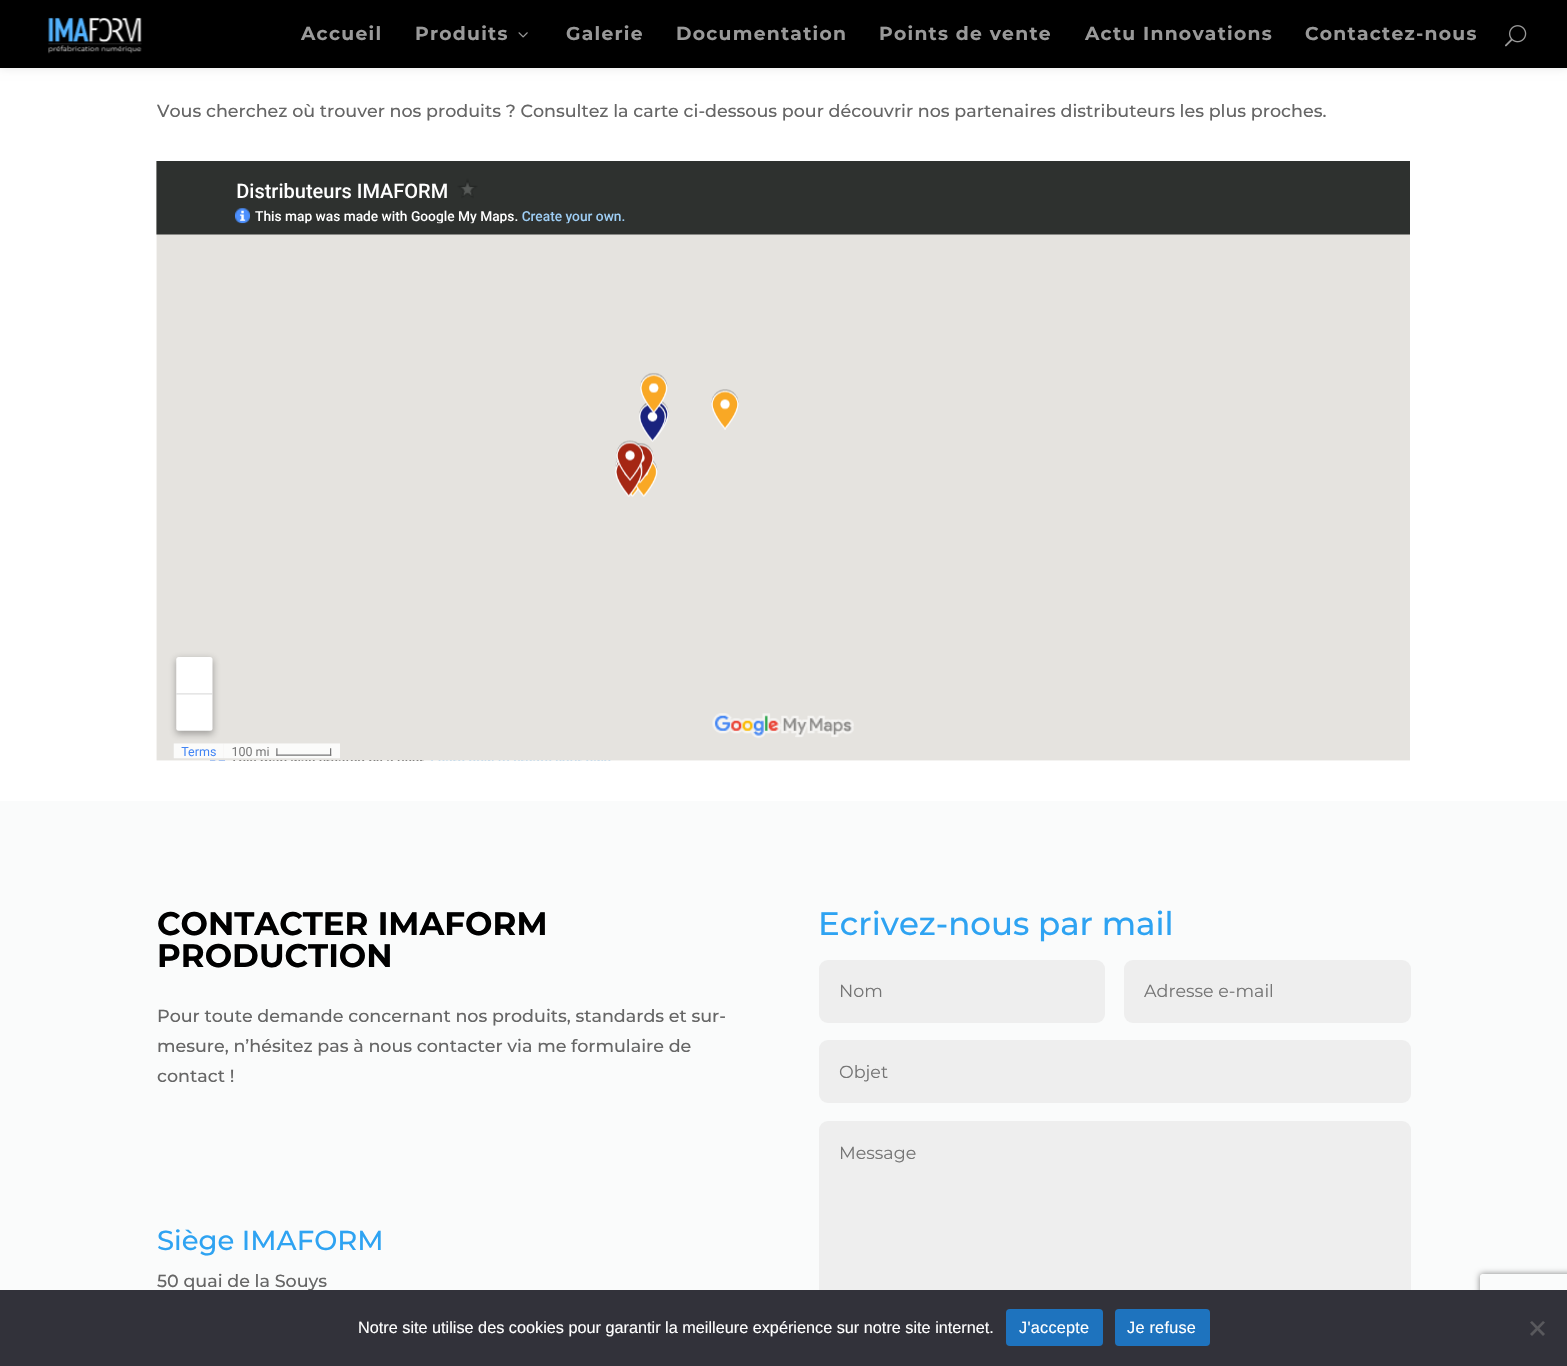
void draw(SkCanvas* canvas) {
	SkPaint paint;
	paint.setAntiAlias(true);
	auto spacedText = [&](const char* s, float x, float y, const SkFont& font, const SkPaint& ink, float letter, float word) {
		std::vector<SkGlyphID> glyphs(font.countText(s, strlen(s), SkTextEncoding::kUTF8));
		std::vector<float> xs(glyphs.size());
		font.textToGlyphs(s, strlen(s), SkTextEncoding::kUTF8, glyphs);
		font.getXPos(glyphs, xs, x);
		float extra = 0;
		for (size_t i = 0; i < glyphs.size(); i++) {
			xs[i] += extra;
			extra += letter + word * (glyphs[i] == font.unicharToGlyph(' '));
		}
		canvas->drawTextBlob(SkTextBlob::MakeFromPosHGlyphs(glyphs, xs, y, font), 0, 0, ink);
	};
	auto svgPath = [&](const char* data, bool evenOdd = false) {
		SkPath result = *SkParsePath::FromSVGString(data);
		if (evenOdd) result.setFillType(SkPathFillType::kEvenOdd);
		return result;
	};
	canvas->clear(0xffffffff);
	paint.setColor(0x1a000000);
	paint.setMaskFilter(SkMaskFilter::MakeBlur(kNormal_SkBlurStyle, 4.5));
	canvas->drawRect(SkRect::MakeXYWH(0, 0, 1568, 68), paint);
	paint.setMaskFilter(nullptr);
	paint.setColor(0xff000000);
	canvas->drawRect(SkRect::MakeXYWH(0, 0, 1567, 68), paint);
	canvas->drawImageRect(SkImages::DeferredFromEncodedData(SkData::MakeFromFileName("img1.png")), SkRect::MakeXYWH(48, 17, 94, 37), SkSamplingOptions());
	SkFont f1(fontMgr->matchFamilyStyle("Montserrat", SkFontStyle::Bold()), 18.75);
	f1.setSubpixel(true);
	paint.setColor(0xff999999);
	spacedText("Accueil", 301, 40, f1, paint, 1.25, 0);
	spacedText("Produits", 415, 40, f1, paint, 1.25, 0);
	canvas->drawImageRect(SkImages::DeferredFromEncodedData(SkData::MakeFromFileName("img2.png")), SkRect::MakeXYWH(518, 32, 10, 6), SkSamplingOptions());
	spacedText("Galerie", 566, 40, f1, paint, 1.25, 0);
	spacedText("Documentation", 676, 40, f1, paint, 1.25, 0);
	spacedText("Points de vente", 879, 40, f1, paint, 1.25, 0);
	spacedText("Actu Innovations", 1085, 40, f1, paint, 1.25, 0);
	spacedText("Contactez-nous", 1305, 40, f1, paint, 1.25, 0);
	canvas->drawImageRect(SkImages::DeferredFromEncodedData(SkData::MakeFromFileName("img3.png")), SkRect::MakeXYWH(1505, 25, 22, 22), SkSamplingOptions());
	SkFont f2(fontMgr->matchFamilyStyle("Montserrat", SkFontStyle(500, SkFontStyle::kNormal_Width, SkFontStyle::kUpright_Slant)), 17.5);
	f2.setSubpixel(true);
	paint.setColor(0xff666666);
	canvas->drawString("Vous cherchez où trouver nos produits ? Consultez la carte ci-dessous pour découvrir nos partenaires distributeurs les plus proches.", 157, 117, f2, paint);
	canvas->drawImageRect(SkImages::DeferredFromEncodedData(SkData::MakeFromFileName("img4.png")), SkRect::MakeXYWH(156, 161, 1254, 600), SkSamplingOptions());
	paint.setColor(0xfffafbfb);
	canvas->drawRect(SkRect::MakeXYWH(0, 801, 1567, 489), paint);
	SkFont f3(fontMgr->matchFamilyStyle("Montserrat", SkFontStyle::Bold()), 32.5);
	f3.setSubpixel(true);
	paint.setColor(0xff000000);
	canvas->drawString("CONTACTER IMAFORM", 157, 935, f3, paint);
	canvas->drawString("PRODUCTION", 157, 967, f3, paint);
	paint.setColor(0xff666666);
	canvas->drawString("Pour toute demande concernant nos produits, standards et sur-", 157, 1022, f2, paint);
	canvas->drawString("mesure, n’hésitez pas à nous contacter via me formulaire de", 157, 1052, f2, paint);
	canvas->drawString("contact !", 157, 1082, f2, paint);
	SkFont f4(fontMgr->matchFamilyStyle("Montserrat", SkFontStyle(500, SkFontStyle::kNormal_Width, SkFontStyle::kUpright_Slant)), 27.5);
	f4.setSubpixel(true);
	paint.setColor(0xff2ea3f2);
	canvas->drawString("Siège IMAFORM", 157, 1250, f4, paint);
	paint.setColor(0xff666666);
	canvas->drawString("50 quai de la Souys", 157, 1287, f2, paint);
	SkFont f5(fontMgr->matchFamilyStyle("Montserrat", SkFontStyle(500, SkFontStyle::kNormal_Width, SkFontStyle::kUpright_Slant)), 32.5);
	f5.setSubpixel(true);
	paint.setColor(0xff2ea3f2);
	canvas->drawString("Ecrivez-nous par mail", 818, 935, f5, paint);
	paint.setColor(0xffeeeeee);
	canvas->drawRoundRect(SkRect::MakeXYWH(819, 960, 286, 63), 9, 9, paint);
	SkFont f6(fontMgr->matchFamilyStyle("Montserrat", SkFontStyle::Normal()), 17.5);
	f6.setSubpixel(true);
	paint.setColor(0xff757575);
	canvas->drawString("Nom", 839, 997, f6, paint);
	paint.setColor(0xffeeeeee);
	canvas->drawRoundRect(SkRect::MakeXYWH(1124, 960, 287, 63), 9, 9, paint);
	paint.setColor(0xff757575);
	canvas->drawString("Adresse e-mail", 1144, 997, f6, paint);
	paint.setColor(0xffeeeeee);
	canvas->drawRoundRect(SkRect::MakeXYWH(819, 1040, 592, 63), 9, 9, paint);
	paint.setColor(0xff757575);
	canvas->drawString("Objet", 839, 1078, f6, paint);
	paint.setColor(0xffeeeeee);
	canvas->drawRoundRect(SkRect::MakeXYWH(819, 1121, 592, 188), 9, 9, paint);
	paint.setColor(0xff757575);
	canvas->drawString("Message", 839, 1159, f6, paint);
	canvas->save();
	canvas->clipPath(svgPath("M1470 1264H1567V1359H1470ZM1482.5 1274H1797.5C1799 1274 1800 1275 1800 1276.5V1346.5C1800 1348 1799 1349 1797.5 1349H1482.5C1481 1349 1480 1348 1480 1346.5V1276.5C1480 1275 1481 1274 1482.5 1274Z", true), true);
	paint.setColor(0xff808080);
	paint.setMaskFilter(SkMaskFilter::MakeBlur(kNormal_SkBlurStyle, 3));
	canvas->drawRoundRect(SkRect::MakeXYWH(1480, 1274, 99, 75), 2.5, 2.5, paint);
	paint.setMaskFilter(nullptr);
	canvas->restore();
	paint.setColor(0xff32323a);
	canvas->drawRect(SkRect::MakeXYWH(0, 1290, 1567, 76), paint);
	SkFont f7(fontMgr->matchFamilyStyle("Liberation Sans", SkFontStyle::Normal()), 16.25);
	f7.setSubpixel(true);
	paint.setColor(0xffffffff);
	canvas->drawString("Notre site utilise des cookies pour garantir la meilleure expérience sur notre site internet.", 358, 1333, f7, paint);
	paint.setColor(0xff1e73be);
	canvas->drawRoundRect(SkRect::MakeXYWH(1006, 1309, 97, 37), 4, 4, paint);
	paint.setColor(0xffffffff);
	spacedText("J'accepte", 1019, 1333, f7, paint, 0.25, 0);
	paint.setColor(0xff1e73be);
	canvas->drawRoundRect(SkRect::MakeXYWH(1115, 1309, 95, 37), 4, 4, paint);
	paint.setColor(0xffffffff);
	spacedText("Je refuse", 1127, 1333, f7, paint, 0.25, 0);
	paint.setColor(0xff59595d);
	canvas->drawPath(svgPath("M1543 1321L1545 1322.5L1532 1336L1530 1334Z"), paint);
	canvas->drawPath(svgPath("M1530 1322.5L1532 1321L1545 1334L1543 1336Z"), paint);
}
